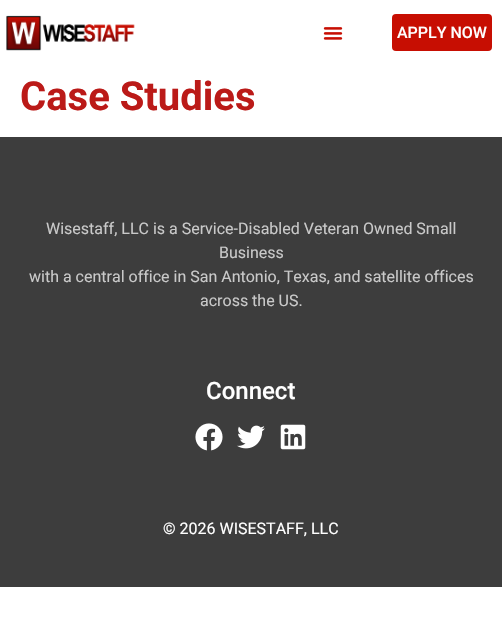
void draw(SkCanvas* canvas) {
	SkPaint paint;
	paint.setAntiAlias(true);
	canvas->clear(0xffffffff);
	canvas->drawImageRect(SkImages::DeferredFromEncodedData(SkData::MakeFromFileName("img1.png")), SkRect::MakeXYWH(6, 15, 129, 36), SkSamplingOptions());
	canvas->drawImageRect(SkImages::DeferredFromEncodedData(SkData::MakeFromFileName("img2.png")), SkRect::MakeXYWH(323, 27, 20, 13), SkSamplingOptions());
	paint.setColor(0xffc70e02);
	canvas->drawRoundRect(SkRect::MakeXYWH(392, 14, 100, 37), 4, 4, paint);
	SkFont f1(fontMgr->matchFamilyStyle("Roboto", SkFontStyle(500, SkFontStyle::kNormal_Width, SkFontStyle::kUpright_Slant)), 16);
	f1.setSubpixel(true);
	paint.setColor(0xffffffff);
	canvas->drawString("APPLY NOW", 397, 38, f1, paint);
	SkFont f2(fontMgr->matchFamilyStyle("Roboto", SkFontStyle::Bold()), 40);
	f2.setSubpixel(true);
	paint.setColor(0xffbb1a18);
	canvas->drawString("Case Studies", 20, 110, f2, paint);
	paint.setColor(0xff3d3d3d);
	canvas->drawRect(SkRect::MakeXYWH(0, 137, 502, 450), paint);
	SkFont f3(fontMgr->matchFamilyStyle("Roboto", SkFontStyle::Normal()), 16);
	f3.setSubpixel(true);
	paint.setColor(0xffc9c9c9);
	canvas->drawString("Wisestaff, LLC is a Service-Disabled Veteran Owned Small", 46, 234, f3, paint);
	canvas->drawString("Business", 219, 258, f3, paint);
	canvas->drawString("with a central office in San Antonio, Texas, and satellite offices", 29, 282, f3, paint);
	canvas->drawString("across the US.", 200, 306, f3, paint);
	SkFont f4(fontMgr->matchFamilyStyle("Roboto", SkFontStyle(500, SkFontStyle::kNormal_Width, SkFontStyle::kUpright_Slant)), 24);
	f4.setSubpixel(true);
	paint.setColor(0xffffffff);
	canvas->drawString("Connect", 206, 399, f4, paint);
	canvas->drawImageRect(SkImages::DeferredFromEncodedData(SkData::MakeFromFileName("img3.png")), SkRect::MakeXYWH(195, 423, 28, 28), SkSamplingOptions());
	canvas->drawImageRect(SkImages::DeferredFromEncodedData(SkData::MakeFromFileName("img4.png")), SkRect::MakeXYWH(237, 425, 28, 24), SkSamplingOptions());
	canvas->drawImageRect(SkImages::DeferredFromEncodedData(SkData::MakeFromFileName("img5.png")), SkRect::MakeXYWH(280, 424, 26, 26), SkSamplingOptions());
	canvas->drawString("© 2026 WISESTAFF, LLC", 163, 534, f3, paint);
}
